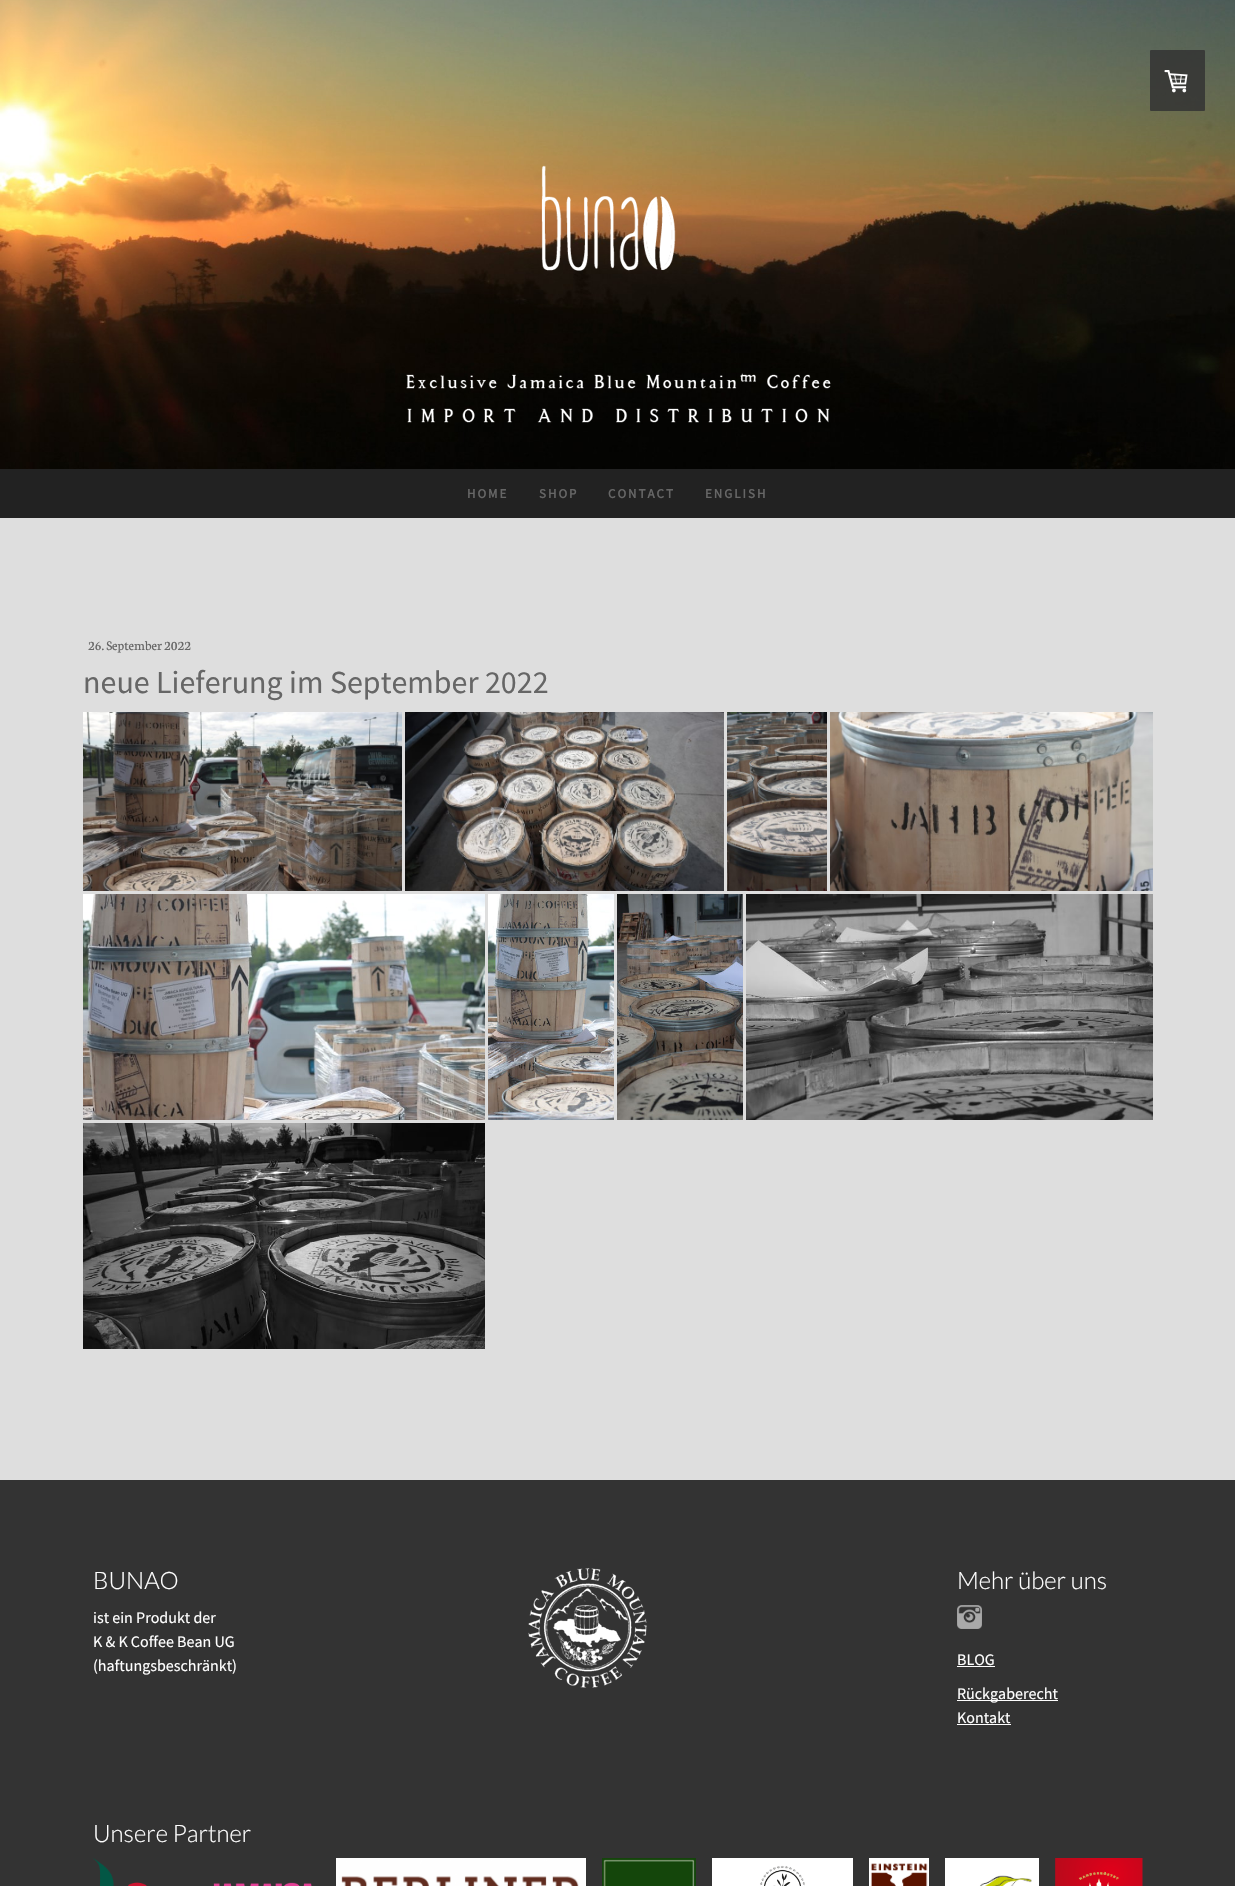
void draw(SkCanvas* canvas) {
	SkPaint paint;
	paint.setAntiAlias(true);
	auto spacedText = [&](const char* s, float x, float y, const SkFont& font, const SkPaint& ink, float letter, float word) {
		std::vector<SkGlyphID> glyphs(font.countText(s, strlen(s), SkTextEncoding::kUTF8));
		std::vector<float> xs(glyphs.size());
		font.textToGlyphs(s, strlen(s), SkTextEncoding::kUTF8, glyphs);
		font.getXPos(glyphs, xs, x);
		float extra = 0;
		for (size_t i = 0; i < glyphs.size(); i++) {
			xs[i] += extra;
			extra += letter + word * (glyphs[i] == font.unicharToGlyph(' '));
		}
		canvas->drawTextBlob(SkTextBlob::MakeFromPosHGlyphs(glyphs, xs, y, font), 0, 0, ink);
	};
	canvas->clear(0xffdedede);
	canvas->drawImageRect(SkImages::DeferredFromEncodedData(SkData::MakeFromFileName("img1.png")), SkRect::MakeXYWH(0, 0, 1235, 469), SkSamplingOptions());
	canvas->drawImageRect(SkImages::DeferredFromEncodedData(SkData::MakeFromFileName("img2.png")), SkRect::MakeXYWH(406, 165, 425, 258), SkSamplingOptions());
	paint.setColor(0xd9333333);
	canvas->drawRoundRect(SkRect::MakeXYWH(1150, 50, 55, 61), 1, 1, paint);
	canvas->drawImageRect(SkImages::DeferredFromEncodedData(SkData::MakeFromFileName("img3.png")), SkRect::MakeXYWH(1164, 70, 24, 23), SkSamplingOptions());
	paint.setColor(0xff222222);
	canvas->drawRect(SkRect::MakeXYWH(0, 469, 1235, 49), paint);
	SkFont f1(fontMgr->matchFamilyStyle("Source Sans Pro", SkFontStyle::Bold()), 13);
	f1.setSubpixel(true);
	paint.setColor(0xff666666);
	spacedText("HOME", 467, 498, f1, paint, 2, 0);
	spacedText("SHOP", 539, 498, f1, paint, 2, 0);
	spacedText("CONTACT", 608, 498, f1, paint, 2, 0);
	spacedText("ENGLISH", 705, 498, f1, paint, 2, 0);
	SkFont f2(fontMgr->matchFamilyStyle("Neuton", SkFontStyle::Normal()), 14);
	f2.setSubpixel(true);
	canvas->drawString("26. September 2022", 88, 650, f2, paint);
	SkFont f3(fontMgr->matchFamilyStyle("Source Sans Pro", SkFontStyle::Normal()), 32);
	f3.setSubpixel(true);
	canvas->drawString("neue Lieferung im September 2022", 83, 693, f3, paint);
	canvas->drawImageRect(SkImages::DeferredFromEncodedData(SkData::MakeFromFileName("img4.png")), SkRect::MakeXYWH(83, 712, 319, 179), SkSamplingOptions());
	canvas->drawImageRect(SkImages::DeferredFromEncodedData(SkData::MakeFromFileName("img5.png")), SkRect::MakeXYWH(405, 712, 319, 179), SkSamplingOptions());
	canvas->drawImageRect(SkImages::DeferredFromEncodedData(SkData::MakeFromFileName("img6.png")), SkRect::MakeXYWH(727, 712, 100, 179), SkSamplingOptions());
	canvas->drawImageRect(SkImages::DeferredFromEncodedData(SkData::MakeFromFileName("img7.png")), SkRect::MakeXYWH(830, 712, 323, 179), SkSamplingOptions());
	canvas->drawImageRect(SkImages::DeferredFromEncodedData(SkData::MakeFromFileName("img8.png")), SkRect::MakeXYWH(83, 894, 402, 226), SkSamplingOptions());
	canvas->drawImageRect(SkImages::DeferredFromEncodedData(SkData::MakeFromFileName("img9.png")), SkRect::MakeXYWH(488, 894, 126, 226), SkSamplingOptions());
	canvas->drawImageRect(SkImages::DeferredFromEncodedData(SkData::MakeFromFileName("img10.png")), SkRect::MakeXYWH(617, 894, 126, 226), SkSamplingOptions());
	canvas->drawImageRect(SkImages::DeferredFromEncodedData(SkData::MakeFromFileName("img11.png")), SkRect::MakeXYWH(746, 894, 407, 226), SkSamplingOptions());
	canvas->drawImageRect(SkImages::DeferredFromEncodedData(SkData::MakeFromFileName("img12.png")), SkRect::MakeXYWH(83, 1123, 402, 226), SkSamplingOptions());
	paint.setColor(0xff333333);
	canvas->drawRect(SkRect::MakeXYWH(0, 1480, 1235, 406), paint);
	SkFont f4(fontMgr->matchFamilyStyle("Lato", SkFontStyle(300, SkFontStyle::kNormal_Width, SkFontStyle::kUpright_Slant)), 24);
	f4.setSubpixel(true);
	paint.setColor(0xffffffff);
	canvas->drawString("BUNAO", 93, 1589, f4, paint);
	SkFont f5(fontMgr->matchFamilyStyle("Source Sans Pro", SkFontStyle::Normal()), 16);
	f5.setSubpixel(true);
	canvas->drawString("ist ein Produkt der", 93, 1623, f5, paint);
	canvas->drawString("K & K Coffee Bean UG", 93, 1647, f5, paint);
	canvas->drawString("(haftungsbeschränkt)", 93, 1671, f5, paint);
	canvas->drawImageRect(SkImages::DeferredFromEncodedData(SkData::MakeFromFileName("img13.png")), SkRect::MakeXYWH(528, 1568, 119, 120), SkSamplingOptions());
	canvas->drawString("Mehr über uns", 957, 1589, f4, paint);
	canvas->drawImageRect(SkImages::DeferredFromEncodedData(SkData::MakeFromFileName("img14.png")), SkRect::MakeXYWH(957, 1605, 25, 24), SkSamplingOptions());
	canvas->drawString("BLOG", 957, 1665, f5, paint);
	canvas->drawRect(SkRect::MakeXYWH(957, 1666, 38, 1), paint);
	canvas->drawRect(SkRect::MakeXYWH(957, 1700, 101, 1), paint);
	canvas->drawString("Rückgaberecht", 957, 1699, f5, paint);
	canvas->drawString("Kontakt", 957, 1723, f5, paint);
	canvas->drawRect(SkRect::MakeXYWH(957, 1724, 54, 1), paint);
	canvas->drawString("Unsere Partner", 93, 1842, f4, paint);
	canvas->drawImageRect(SkImages::DeferredFromEncodedData(SkData::MakeFromFileName("img15.png")), SkRect::MakeXYWH(93, 1858, 54, 28), SkSamplingOptions());
	canvas->drawImageRect(SkImages::DeferredFromEncodedData(SkData::MakeFromFileName("img16.png")), SkRect::MakeXYWH(213, 1882, 99, 4), SkSamplingOptions());
	canvas->drawImageRect(SkImages::DeferredFromEncodedData(SkData::MakeFromFileName("img17.png")), SkRect::MakeXYWH(336, 1858, 250, 28), SkSamplingOptions());
	canvas->drawImageRect(SkImages::DeferredFromEncodedData(SkData::MakeFromFileName("img18.png")), SkRect::MakeXYWH(602, 1858, 94, 28), SkSamplingOptions());
	canvas->drawImageRect(SkImages::DeferredFromEncodedData(SkData::MakeFromFileName("img19.png")), SkRect::MakeXYWH(712, 1858, 141, 28), SkSamplingOptions());
	canvas->drawImageRect(SkImages::DeferredFromEncodedData(SkData::MakeFromFileName("img20.png")), SkRect::MakeXYWH(869, 1858, 60, 28), SkSamplingOptions());
	canvas->drawImageRect(SkImages::DeferredFromEncodedData(SkData::MakeFromFileName("img21.png")), SkRect::MakeXYWH(945, 1858, 94, 28), SkSamplingOptions());
	canvas->drawImageRect(SkImages::DeferredFromEncodedData(SkData::MakeFromFileName("img22.png")), SkRect::MakeXYWH(1055, 1858, 88, 28), SkSamplingOptions());
}
